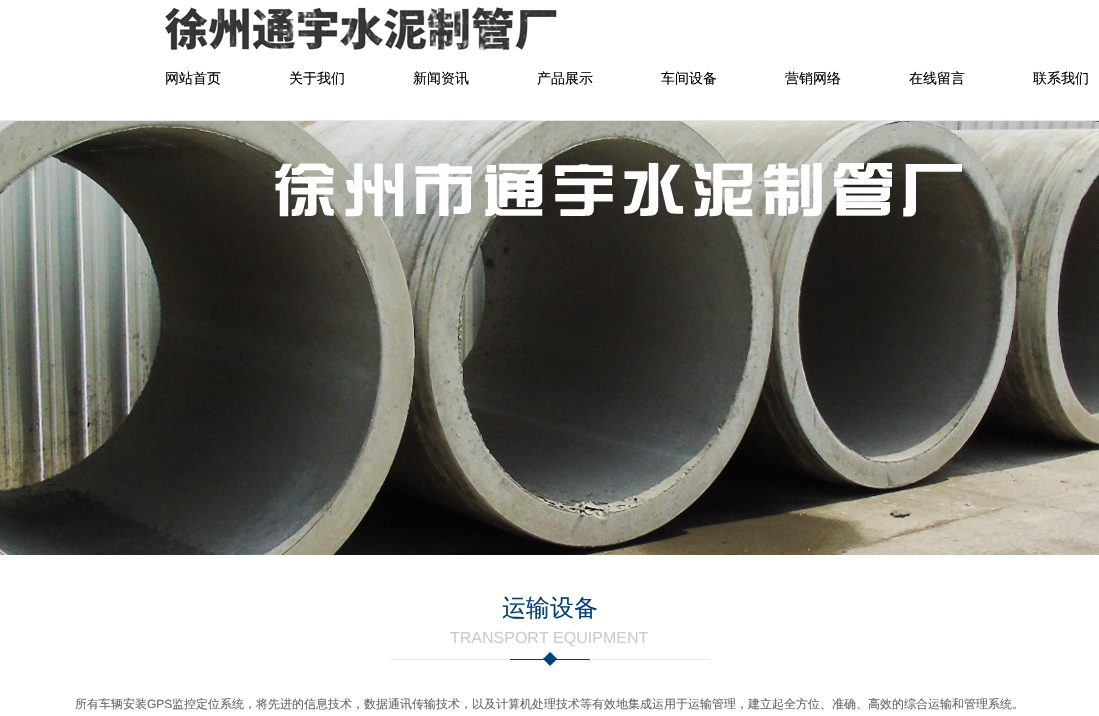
void draw(SkCanvas* canvas) {
	SkPaint paint;
	paint.setAntiAlias(true);
	canvas->clear(0xffffffff);
	paint.setColor(0xffe8e8e8);
	canvas->drawRect(SkRect::MakeXYWH(0, 120, 1099, 1), paint);
	canvas->drawImageRect(SkImages::DeferredFromEncodedData(SkData::MakeFromFileName("img1.png")), SkRect::MakeXYWH(165, 7, 392, 43), SkSamplingOptions());
	SkFont f1(fontMgr->matchFamilyStyle("WenQuanYi Zen Hei", SkFontStyle(500, SkFontStyle::kNormal_Width, SkFontStyle::kUpright_Slant)), 14);
	f1.setSubpixel(true);
	paint.setColor(0xff000000);
	canvas->drawString("网站首页", 165, 83, f1, paint);
	canvas->drawString("关于我们", 289, 83, f1, paint);
	canvas->drawString("新闻资讯", 413, 83, f1, paint);
	canvas->drawString("产品展示", 537, 83, f1, paint);
	canvas->drawString("车间设备", 661, 83, f1, paint);
	canvas->drawString("营销网络", 785, 83, f1, paint);
	canvas->drawString("在线留言", 909, 83, f1, paint);
	canvas->drawString("联系我们", 1033, 83, f1, paint);
	canvas->drawImageRect(SkImages::DeferredFromEncodedData(SkData::MakeFromFileName("img2.png")), SkRect::MakeXYWH(0, 121, 1099, 434), SkSamplingOptions());
	SkFont f2(fontMgr->matchFamilyStyle("WenQuanYi Zen Hei", SkFontStyle(500, SkFontStyle::kNormal_Width, SkFontStyle::kUpright_Slant)), 24);
	f2.setSubpixel(true);
	paint.setColor(0xff00417b);
	canvas->drawString("运输设备", 502, 616, f2, paint);
	SkFont f3(fontMgr->matchFamilyStyle("Liberation Sans", SkFontStyle::Normal()), 16);
	f3.setSubpixel(true);
	paint.setColor(0xffcccccc);
	canvas->drawString("TRANSPORT EQUIPMENT", 450, 643, f3, paint);
	canvas->drawImageRect(SkImages::DeferredFromEncodedData(SkData::MakeFromFileName("img3.png")), SkRect::MakeXYWH(390, 652, 320, 15), SkSamplingOptions());
	SkFont f4(fontMgr->matchFamilyStyle("WenQuanYi Zen Hei", SkFontStyle(500, SkFontStyle::kNormal_Width, SkFontStyle::kUpright_Slant)), 12);
	f4.setSubpixel(true);
	paint.setColor(0xff666666);
	canvas->drawString("所有车辆安装", 75, 708, f4, paint);
	SkFont f5(fontMgr->matchFamilyStyle("Liberation Sans", SkFontStyle::Normal()), 12);
	f5.setSubpixel(true);
	canvas->drawString("GPS", 147, 708, f5, paint);
	canvas->drawString("监控定位系统，将先进的信息技术，数据通讯传输技术，以及计算机处理技术等有效地集成运用于运输管理，建立起全方位、准确、高效的综合运输和管理系统。", 172, 708, f4, paint);
}
